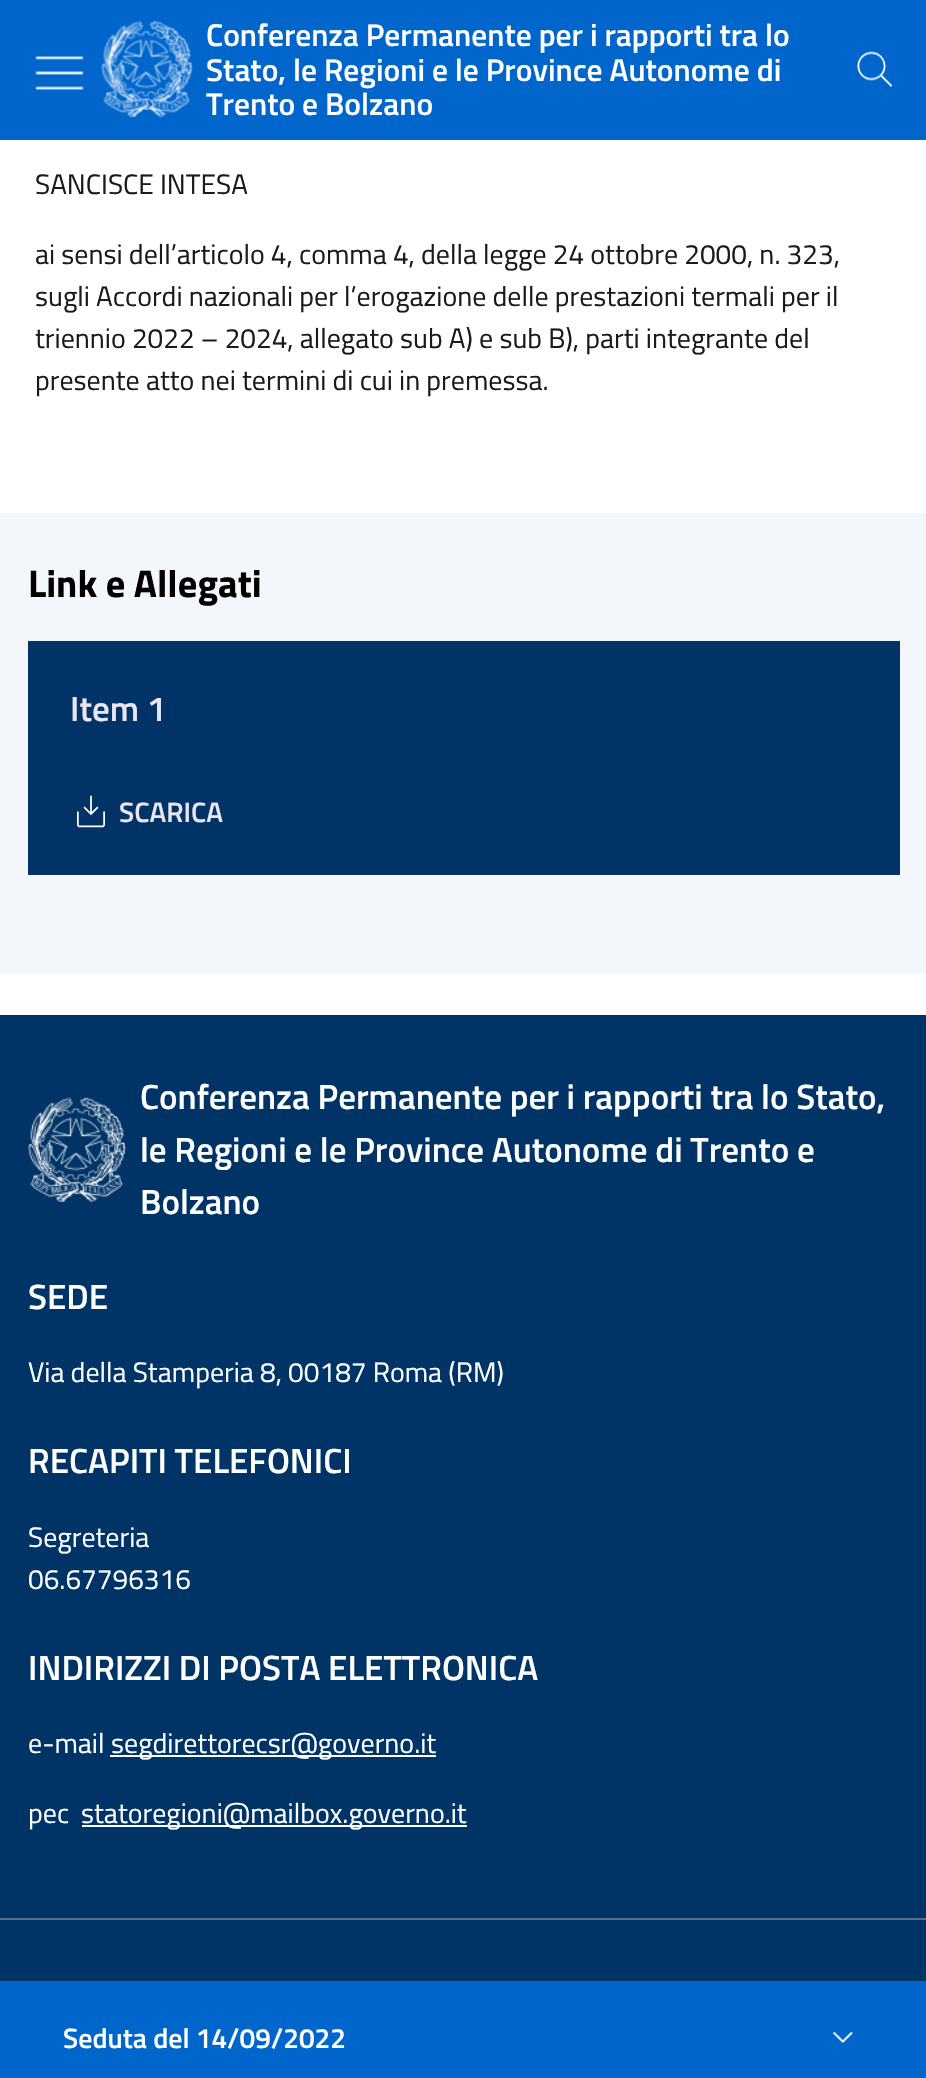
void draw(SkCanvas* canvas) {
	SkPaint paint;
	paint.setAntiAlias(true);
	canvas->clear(0xffffffff);
	paint.setColor(0xff0066cc);
	canvas->drawRect(SkRect::MakeXYWH(0, 0, 926, 140), paint);
	canvas->drawImageRect(SkImages::DeferredFromEncodedData(SkData::MakeFromFileName("img1.png")), SkRect::MakeXYWH(35, 56, 49, 34), SkSamplingOptions());
	canvas->drawImageRect(SkImages::DeferredFromEncodedData(SkData::MakeFromFileName("img2.png")), SkRect::MakeXYWH(101, 20, 92, 98), SkSamplingOptions());
	SkFont f1(fontMgr->matchFamilyStyle("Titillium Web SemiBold", SkFontStyle(600, SkFontStyle::kNormal_Width, SkFontStyle::kUpright_Slant)), 31.5);
	f1.setSubpixel(true);
	paint.setColor(0xffffffff);
	canvas->drawString("Conferenza Permanente per i rapporti tra lo", 206, 46, f1, paint);
	canvas->drawString("Stato, le Regioni e le Province Autonome di", 206, 81, f1, paint);
	canvas->drawString("Trento e Bolzano", 206, 115, f1, paint);
	canvas->drawImageRect(SkImages::DeferredFromEncodedData(SkData::MakeFromFileName("img3.png")), SkRect::MakeXYWH(857, 51, 36, 37), SkSamplingOptions());
	SkFont f2(fontMgr->matchFamilyStyle("Titillium Web", SkFontStyle::Normal()), 28);
	f2.setSubpixel(true);
	paint.setColor(0xff1a1a1a);
	canvas->drawString("SANCISCE INTESA", 35, 194, f2, paint);
	canvas->drawString("ai sensi dell’articolo 4, comma 4, della legge 24 ottobre 2000, n. 323,", 35, 264, f2, paint);
	canvas->drawString("sugli Accordi nazionali per l’erogazione delle prestazioni termali per il", 35, 306, f2, paint);
	canvas->drawString("triennio 2022 – 2024, allegato sub A) e sub B), parti integrante del", 35, 348, f2, paint);
	canvas->drawString("presente atto nei termini di cui in premessa.", 35, 390, f2, paint);
	paint.setColor(0xff0066cc);
	canvas->drawRect(SkRect::MakeXYWH(0, 1981, 926, 97), paint);
	SkFont f3(fontMgr->matchFamilyStyle("Titillium Web SemiBold", SkFontStyle(600, SkFontStyle::kNormal_Width, SkFontStyle::kUpright_Slant)), 28);
	f3.setSubpixel(true);
	paint.setColor(0xffffffff);
	canvas->drawString("Seduta del 14/09/2022", 63, 2048, f3, paint);
	canvas->drawImageRect(SkImages::DeferredFromEncodedData(SkData::MakeFromFileName("img4.png")), SkRect::MakeXYWH(832, 2031, 21, 12), SkSamplingOptions());
	paint.setColor(0xfff3f7fc);
	canvas->drawRect(SkRect::MakeXYWH(0, 513, 926, 460), paint);
	SkFont f4(fontMgr->matchFamilyStyle("Titillium Web", SkFontStyle::Bold()), 38.5);
	f4.setSubpixel(true);
	paint.setColor(0xff000000);
	canvas->drawString("Link e Allegati", 28, 597, f4, paint);
	paint.setColor(0xff013366);
	canvas->drawRect(SkRect::MakeXYWH(28, 641, 872, 234), paint);
	SkFont f5(fontMgr->matchFamilyStyle("Titillium Web SemiBold", SkFontStyle(600, SkFontStyle::kNormal_Width, SkFontStyle::kUpright_Slant)), 35);
	f5.setSubpixel(true);
	paint.setColor(0xffe9e6f2);
	canvas->drawString("Item 1", 70, 721, f5, paint);
	canvas->drawImageRect(SkImages::DeferredFromEncodedData(SkData::MakeFromFileName("img5.png")), SkRect::MakeXYWH(77, 795, 28, 33), SkSamplingOptions());
	canvas->drawString("SCARICA", 119, 822, f3, paint);
	paint.setColor(0xff003366);
	canvas->drawRect(SkRect::MakeXYWH(0, 1015, 926, 903), paint);
	canvas->drawImageRect(SkImages::DeferredFromEncodedData(SkData::MakeFromFileName("img6.png")), SkRect::MakeXYWH(28, 1097, 98, 105), SkSamplingOptions());
	paint.setColor(0xffffffff);
	canvas->drawString("Conferenza Permanente per i rapporti tra lo Stato,", 140, 1109, f5, paint);
	canvas->drawString("le Regioni e le Province Autonome di Trento e", 140, 1162, f5, paint);
	canvas->drawString("Bolzano", 140, 1214, f5, paint);
	paint.setColor(0xff5d7083);
	canvas->drawRect(SkRect::MakeXYWH(0, 1918, 926, 2), paint);
	paint.setColor(0xffffffff);
	canvas->drawString("SEDE", 28, 1309, f5, paint);
	canvas->drawString("Via della Stamperia 8, 00187 Roma (RM)", 28, 1382, f2, paint);
	canvas->drawString("RECAPITI TELEFONICI", 28, 1473, f5, paint);
	canvas->drawString("Segreteria", 28, 1547, f2, paint);
	canvas->drawString("06.67796316", 28, 1589, f2, paint);
	canvas->drawString("INDIRIZZI DI POSTA ELETTRONICA", 28, 1680, f5, paint);
	canvas->drawString("e-mail", 28, 1753, f2, paint);
	canvas->drawRect(SkRect::MakeXYWH(110, 1755, 326, 2), paint);
	canvas->drawString("segdirettorecsr@governo.it", 111, 1753, f2, paint);
	canvas->drawString("pec", 28, 1823, f2, paint);
	canvas->drawRect(SkRect::MakeXYWH(82, 1825, 385, 2), paint);
	canvas->drawString("statoregioni@mailbox.governo.it", 81, 1823, f2, paint);
	paint.setColor(0xff003366);
	canvas->drawRect(SkRect::MakeXYWH(0, 1920, 926, 61), paint);
}
